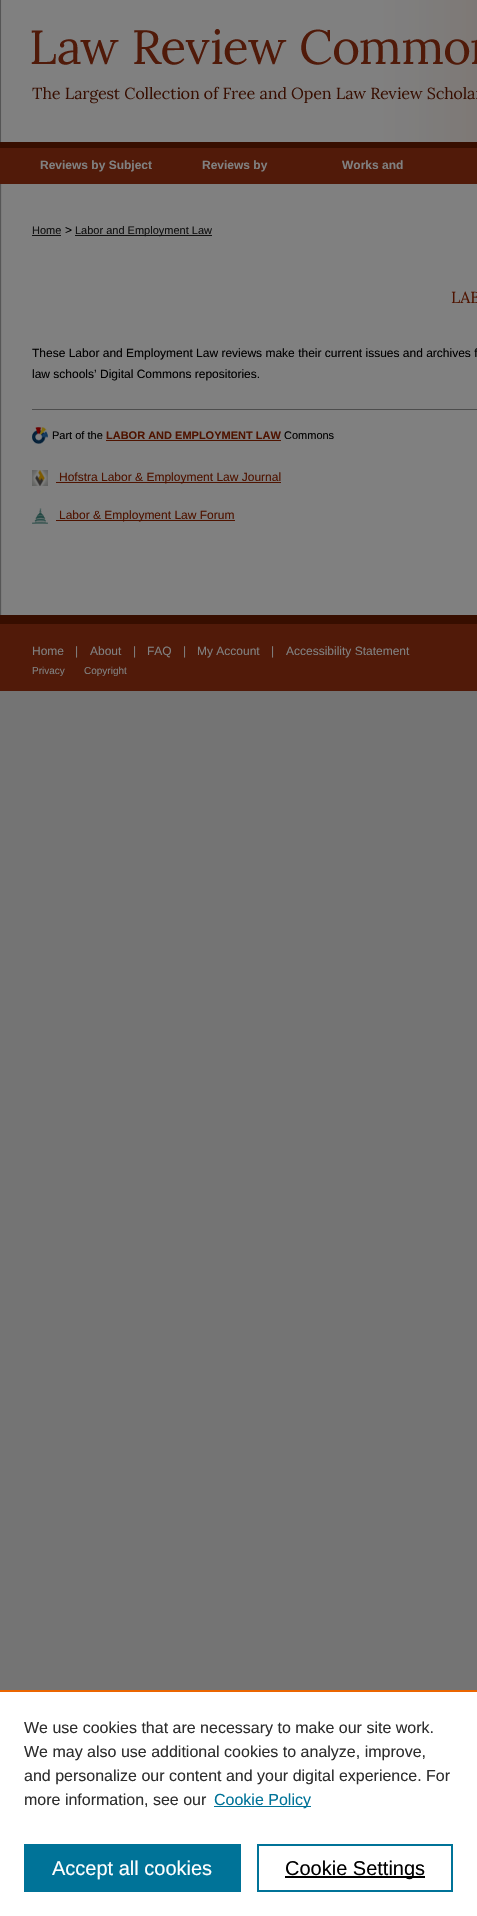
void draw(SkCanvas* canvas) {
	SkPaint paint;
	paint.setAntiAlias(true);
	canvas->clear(0xff747474);
	canvas->drawImageRect(SkImages::DeferredFromEncodedData(SkData::MakeFromFileName("img1.png")), SkRect::MakeXYWH(0, 0, 477, 142), SkSamplingOptions());
	paint.setColor(0xff511a09);
	canvas->drawRect(SkRect::MakeXYWH(0, 148, 477, 36), paint);
	paint.setColor(0xff370e00);
	canvas->drawRect(SkRect::MakeXYWH(0, 142, 477, 6), paint);
	SkFont f1(fontMgr->matchFamilyStyle("Liberation Sans", SkFontStyle::Bold()), 12);
	f1.setSubpixel(true);
	paint.setColor(0xff808080);
	canvas->drawString("Reviews by Subject", 40, 169, f1, paint);
	canvas->drawString("Reviews by", 202, 169, f1, paint);
	canvas->drawString("Works and", 342, 169, f1, paint);
	canvas->drawRect(SkRect::MakeXYWH(2, 184, 475, 431), paint);
	canvas->drawImageRect(SkImages::DeferredFromEncodedData(SkData::MakeFromFileName("img2.png")), SkRect::MakeXYWH(0, 184, 2, 431), SkSamplingOptions());
	SkFont f2(fontMgr->matchFamilyStyle("Liberation Sans", SkFontStyle::Normal()), 11);
	f2.setSubpixel(true);
	paint.setColor(0xff111111);
	canvas->drawString("Home", 32, 234, f2, paint);
	canvas->drawRect(SkRect::MakeXYWH(32, 235, 29, 1), paint);
	SkFont f3(fontMgr->matchFamilyStyle("Liberation Sans", SkFontStyle::Normal()), 12);
	f3.setSubpixel(true);
	paint.setColor(0xff000000);
	canvas->drawString(">", 65, 234, f3, paint);
	paint.setColor(0xff111111);
	canvas->drawRect(SkRect::MakeXYWH(75, 235, 137, 1), paint);
	canvas->drawString("Labor and Employment Law", 75, 234, f2, paint);
	SkFont f4(fontMgr->matchFamilyStyle("Lora", SkFontStyle::Normal()), 16);
	f4.setSubpixel(true);
	paint.setColor(0xff4f1300);
	canvas->drawString("LAB", 451, 303, f4, paint);
	paint.setColor(0xff000000);
	canvas->drawString("These Labor and Employment Law reviews make their current issues and archives f", 32, 357, f3, paint);
	canvas->drawString("law schools’ Digital Commons repositories.", 32, 378, f3, paint);
	paint.setColor(0xff4d4d4d);
	canvas->drawRect(SkRect::MakeXYWH(32, 409, 445, 1), paint);
	canvas->drawImageRect(SkImages::DeferredFromEncodedData(SkData::MakeFromFileName("img3.png")), SkRect::MakeXYWH(32, 427, 16, 17), SkSamplingOptions());
	paint.setColor(0xff000000);
	canvas->drawString("Part of the", 52, 439, f2, paint);
	SkFont f5(fontMgr->matchFamilyStyle("Liberation Sans", SkFontStyle::Bold()), 11);
	f5.setSubpixel(true);
	paint.setColor(0xff4f1300);
	canvas->drawString("LABOR AND EMPLOYMENT LAW", 106, 439, f5, paint);
	canvas->drawRect(SkRect::MakeXYWH(106, 440, 175, 1), paint);
	paint.setColor(0xff000000);
	canvas->drawString("Commons", 284, 439, f2, paint);
	canvas->drawImageRect(SkImages::DeferredFromEncodedData(SkData::MakeFromFileName("img4.png")), SkRect::MakeXYWH(32, 470, 16, 16), SkSamplingOptions());
	paint.setColor(0xff4f1300);
	canvas->drawRect(SkRect::MakeXYWH(56, 482, 225, 1), paint);
	canvas->drawString("Hofstra Labor & Employment Law Journal", 59, 481, f3, paint);
	canvas->drawImageRect(SkImages::DeferredFromEncodedData(SkData::MakeFromFileName("img5.png")), SkRect::MakeXYWH(32, 508, 16, 16), SkSamplingOptions());
	canvas->drawRect(SkRect::MakeXYWH(56, 520, 179, 1), paint);
	canvas->drawString("Labor & Employment Law Forum", 59, 519, f3, paint);
	paint.setColor(0xff511a09);
	canvas->drawRect(SkRect::MakeXYWH(0, 624, 477, 67), paint);
	paint.setColor(0xff370e00);
	canvas->drawRect(SkRect::MakeXYWH(0, 615, 477, 9), paint);
	paint.setColor(0xff808080);
	canvas->drawString("Home", 32, 655, f3, paint);
	canvas->drawString("|", 75, 655, f3, paint);
	canvas->drawString("About", 90, 655, f3, paint);
	canvas->drawString("|", 133, 655, f3, paint);
	canvas->drawString("FAQ", 147, 655, f3, paint);
	canvas->drawString("|", 183, 655, f3, paint);
	canvas->drawString("My Account", 197, 655, f3, paint);
	canvas->drawString("|", 271, 655, f3, paint);
	canvas->drawString("Accessibility Statement", 286, 655, f3, paint);
	SkFont f6(fontMgr->matchFamilyStyle("Liberation Sans", SkFontStyle::Normal()), 10);
	f6.setSubpixel(true);
	canvas->drawString("Privacy", 32, 674, f6, paint);
	canvas->drawString("Copyright", 84, 674, f6, paint);
	paint.setColor(0xffffffff);
	canvas->drawRect(SkRect::MakeXYWH(0, 1692, 477, 224), paint);
	paint.setColor(0xffeb6500);
	canvas->drawRect(SkRect::MakeXYWH(0, 1690, 477, 2), paint);
	SkFont f7(fontMgr->matchFamilyStyle("Liberation Sans", SkFontStyle::Normal()), 16);
	f7.setSubpixel(true);
	paint.setColor(0xff2e2e2e);
	canvas->drawString("We use cookies that are necessary to make our site work.", 24, 1733, f7, paint);
	canvas->drawString("We may also use additional cookies to analyze, improve,", 24, 1757, f7, paint);
	canvas->drawString("and personalize our content and your digital experience. For", 24, 1781, f7, paint);
	canvas->drawString("more information, see our", 24, 1805, f7, paint);
	paint.setColor(0xff007398);
	canvas->drawRect(SkRect::MakeXYWH(214, 1806, 97, 1), paint);
	canvas->drawString("Cookie Policy", 214, 1805, f7, paint);
	canvas->drawRect(SkRect::MakeXYWH(24, 1844, 217, 48), paint);
	SkFont f8(fontMgr->matchFamilyStyle("Liberation Sans", SkFontStyle::Normal()), 20);
	f8.setSubpixel(true);
	paint.setColor(0xffffffff);
	canvas->drawString("Accept all cookies", 52, 1875, f8, paint);
	paint.setStroke(true);
	paint.setStrokeWidth(2);
	paint.setColor(0xff007398);
	canvas->drawRect(SkRect::MakeXYWH(258, 1845, 194, 46), paint);
	paint.setStroke(false);
	paint.setColor(0xff000000);
	canvas->drawRect(SkRect::MakeXYWH(285, 1876, 140, 2), paint);
	canvas->drawString("Cookie Settings", 285, 1875, f8, paint);
}
